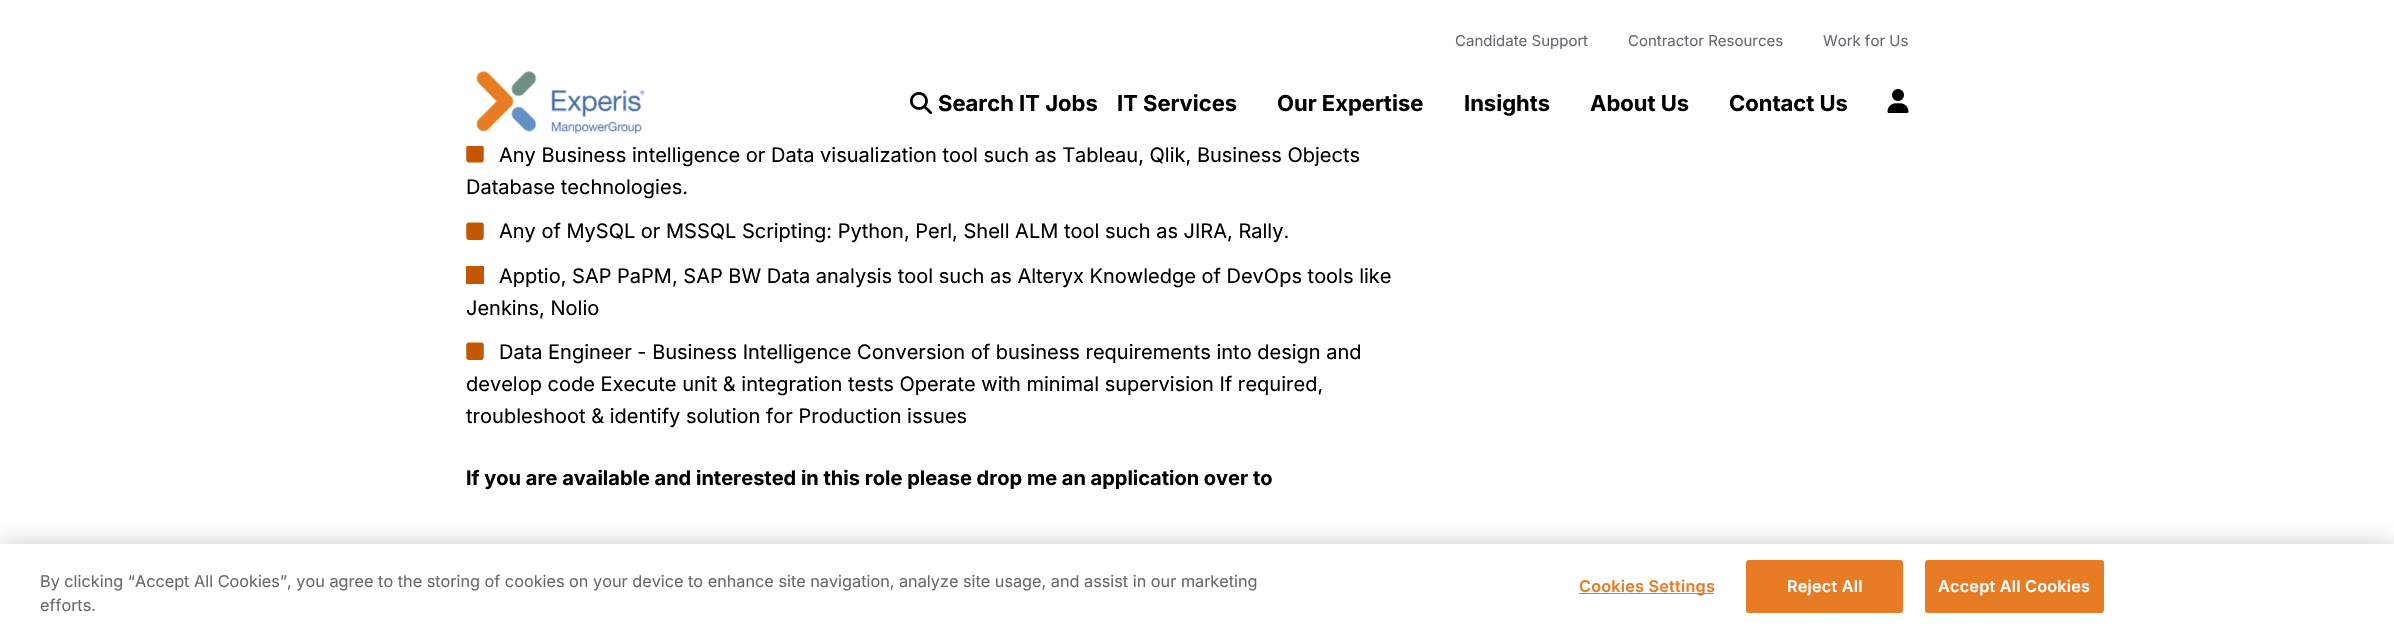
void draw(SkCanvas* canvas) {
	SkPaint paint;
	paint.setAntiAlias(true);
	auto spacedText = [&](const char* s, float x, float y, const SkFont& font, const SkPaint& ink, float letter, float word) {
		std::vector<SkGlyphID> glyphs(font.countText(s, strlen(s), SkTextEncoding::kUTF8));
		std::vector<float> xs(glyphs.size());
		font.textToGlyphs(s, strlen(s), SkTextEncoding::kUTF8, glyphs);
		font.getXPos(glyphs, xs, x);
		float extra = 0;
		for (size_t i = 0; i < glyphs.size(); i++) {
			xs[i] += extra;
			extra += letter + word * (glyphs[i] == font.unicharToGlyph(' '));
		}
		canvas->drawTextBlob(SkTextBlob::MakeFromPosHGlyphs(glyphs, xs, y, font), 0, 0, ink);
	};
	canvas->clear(0xffffffff);
	SkFont f1(fontMgr->matchFamilyStyle("Inter", SkFontStyle::Normal()), 15);
	f1.setSubpixel(true);
	paint.setColor(0xff67696f);
	canvas->drawString("Candidate Support", 1455, 46, f1, paint);
	canvas->drawString("Contractor Resources", 1628, 46, f1, paint);
	canvas->drawString("Work for Us", 1823, 46, f1, paint);
	canvas->drawImageRect(SkImages::DeferredFromEncodedData(SkData::MakeFromFileName("img1.png")), SkRect::MakeXYWH(476, 71, 169, 64), SkSamplingOptions());
	canvas->drawImageRect(SkImages::DeferredFromEncodedData(SkData::MakeFromFileName("img2.png")), SkRect::MakeXYWH(910, 92, 22, 22), SkSamplingOptions());
	SkFont f2(fontMgr->matchFamilyStyle("Inter", SkFontStyle::Bold()), 22);
	f2.setSubpixel(true);
	paint.setColor(0xff000000);
	canvas->drawString("Search IT Jobs", 938, 111, f2, paint);
	canvas->drawString("IT Services", 1117, 111, f2, paint);
	canvas->drawString("Our Expertise", 1277, 111, f2, paint);
	canvas->drawString("Insights", 1464, 111, f2, paint);
	canvas->drawString("About Us", 1590, 111, f2, paint);
	canvas->drawString("Contact Us", 1729, 111, f2, paint);
	canvas->drawImageRect(SkImages::DeferredFromEncodedData(SkData::MakeFromFileName("img3.png")), SkRect::MakeXYWH(1887, 89, 22, 24), SkSamplingOptions());
	canvas->drawImageRect(SkImages::DeferredFromEncodedData(SkData::MakeFromFileName("img4.png")), SkRect::MakeXYWH(466, 146, 18, 17), SkSamplingOptions());
	SkFont f3(fontMgr->matchFamilyStyle("Inter", SkFontStyle::Normal()), 20);
	f3.setSubpixel(true);
	canvas->drawString("Any Business intelligence or Data visualization tool such as Tableau, Qlik, Business Objects", 499, 162, f3, paint);
	canvas->drawString("Database technologies.", 466, 194, f3, paint);
	canvas->drawImageRect(SkImages::DeferredFromEncodedData(SkData::MakeFromFileName("img5.png")), SkRect::MakeXYWH(466, 222, 18, 18), SkSamplingOptions());
	canvas->drawString("Any of MySQL or MSSQL Scripting: Python, Perl, Shell ALM tool such as JIRA, Rally.", 499, 238, f3, paint);
	paint.setColor(0xffc35700);
	canvas->drawRect(SkRect::MakeXYWH(466, 266, 18, 18), paint);
	paint.setColor(0xff000000);
	canvas->drawString("Apptio, SAP PaPM, SAP BW Data analysis tool such as Alteryx Knowledge of DevOps tools like", 499, 283, f3, paint);
	canvas->drawString("Jenkins, Nolio", 466, 315, f3, paint);
	canvas->drawImageRect(SkImages::DeferredFromEncodedData(SkData::MakeFromFileName("img5.png")), SkRect::MakeXYWH(466, 342, 18, 18), SkSamplingOptions());
	canvas->drawString("Data Engineer - Business Intelligence Conversion of business requirements into design and", 499, 359, f3, paint);
	canvas->drawString("develop code Execute unit & integration tests Operate with minimal supervision If required,", 466, 391, f3, paint);
	canvas->drawString("troubleshoot & identify solution for Production issues", 466, 423, f3, paint);
	SkFont f4(fontMgr->matchFamilyStyle("Inter", SkFontStyle::Bold()), 20);
	f4.setSubpixel(true);
	canvas->drawString("If you are available and interested in this role please drop me an application over to", 466, 485, f4, paint);
	paint.setColor(0x33000000);
	paint.setMaskFilter(SkMaskFilter::MakeBlur(kNormal_SkBlurStyle, 11));
	canvas->drawRect(SkRect::MakeXYWH(0, 544, 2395, 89), paint);
	paint.setMaskFilter(nullptr);
	paint.setColor(0xffffffff);
	canvas->drawRect(SkRect::MakeXYWH(0, 544, 2394, 88), paint);
	SkFont f5(fontMgr->matchFamilyStyle("Inter", SkFontStyle::Normal()), 16.25);
	f5.setSubpixel(true);
	paint.setColor(0xff696969);
	canvas->drawString("By clicking “Accept All Cookies”, you agree to the storing of cookies on your device to enhance site navigation, analyze site usage, and assist in our marketing", 40, 587, f5, paint);
	canvas->drawString("efforts.", 40, 611, f5, paint);
	paint.setColor(0xffe77c25);
	canvas->drawRect(SkRect::MakeXYWH(1579, 593, 135, 1), paint);
	SkFont f6(fontMgr->matchFamilyStyle("Inter", SkFontStyle(600, SkFontStyle::kNormal_Width, SkFontStyle::kUpright_Slant)), 16.25);
	f6.setSubpixel(true);
	spacedText("Cookies Settings", 1579, 592, f6, paint, 0.2, 0);
	canvas->drawRoundRect(SkRect::MakeXYWH(1746.5, 560.5, 156, 52), 2, 2, paint);
	paint.setStroke(true);
	paint.setStrokeWidth(1);
	canvas->drawRoundRect(SkRect::MakeXYWH(1746.5, 560.5, 156, 52), 2, 2, paint);
	paint.setStroke(false);
	paint.setColor(0xffffffff);
	spacedText("Reject All", 1787, 592, f6, paint, 0.2, 0);
	paint.setColor(0xffe77c25);
	canvas->drawRoundRect(SkRect::MakeXYWH(1925.5, 560.5, 178, 52), 2, 2, paint);
	paint.setStroke(true);
	canvas->drawRoundRect(SkRect::MakeXYWH(1925.5, 560.5, 178, 52), 2, 2, paint);
	paint.setStroke(false);
	paint.setColor(0xffffffff);
	spacedText("Accept All Cookies", 1938, 592, f6, paint, 0.2, 0);
}
